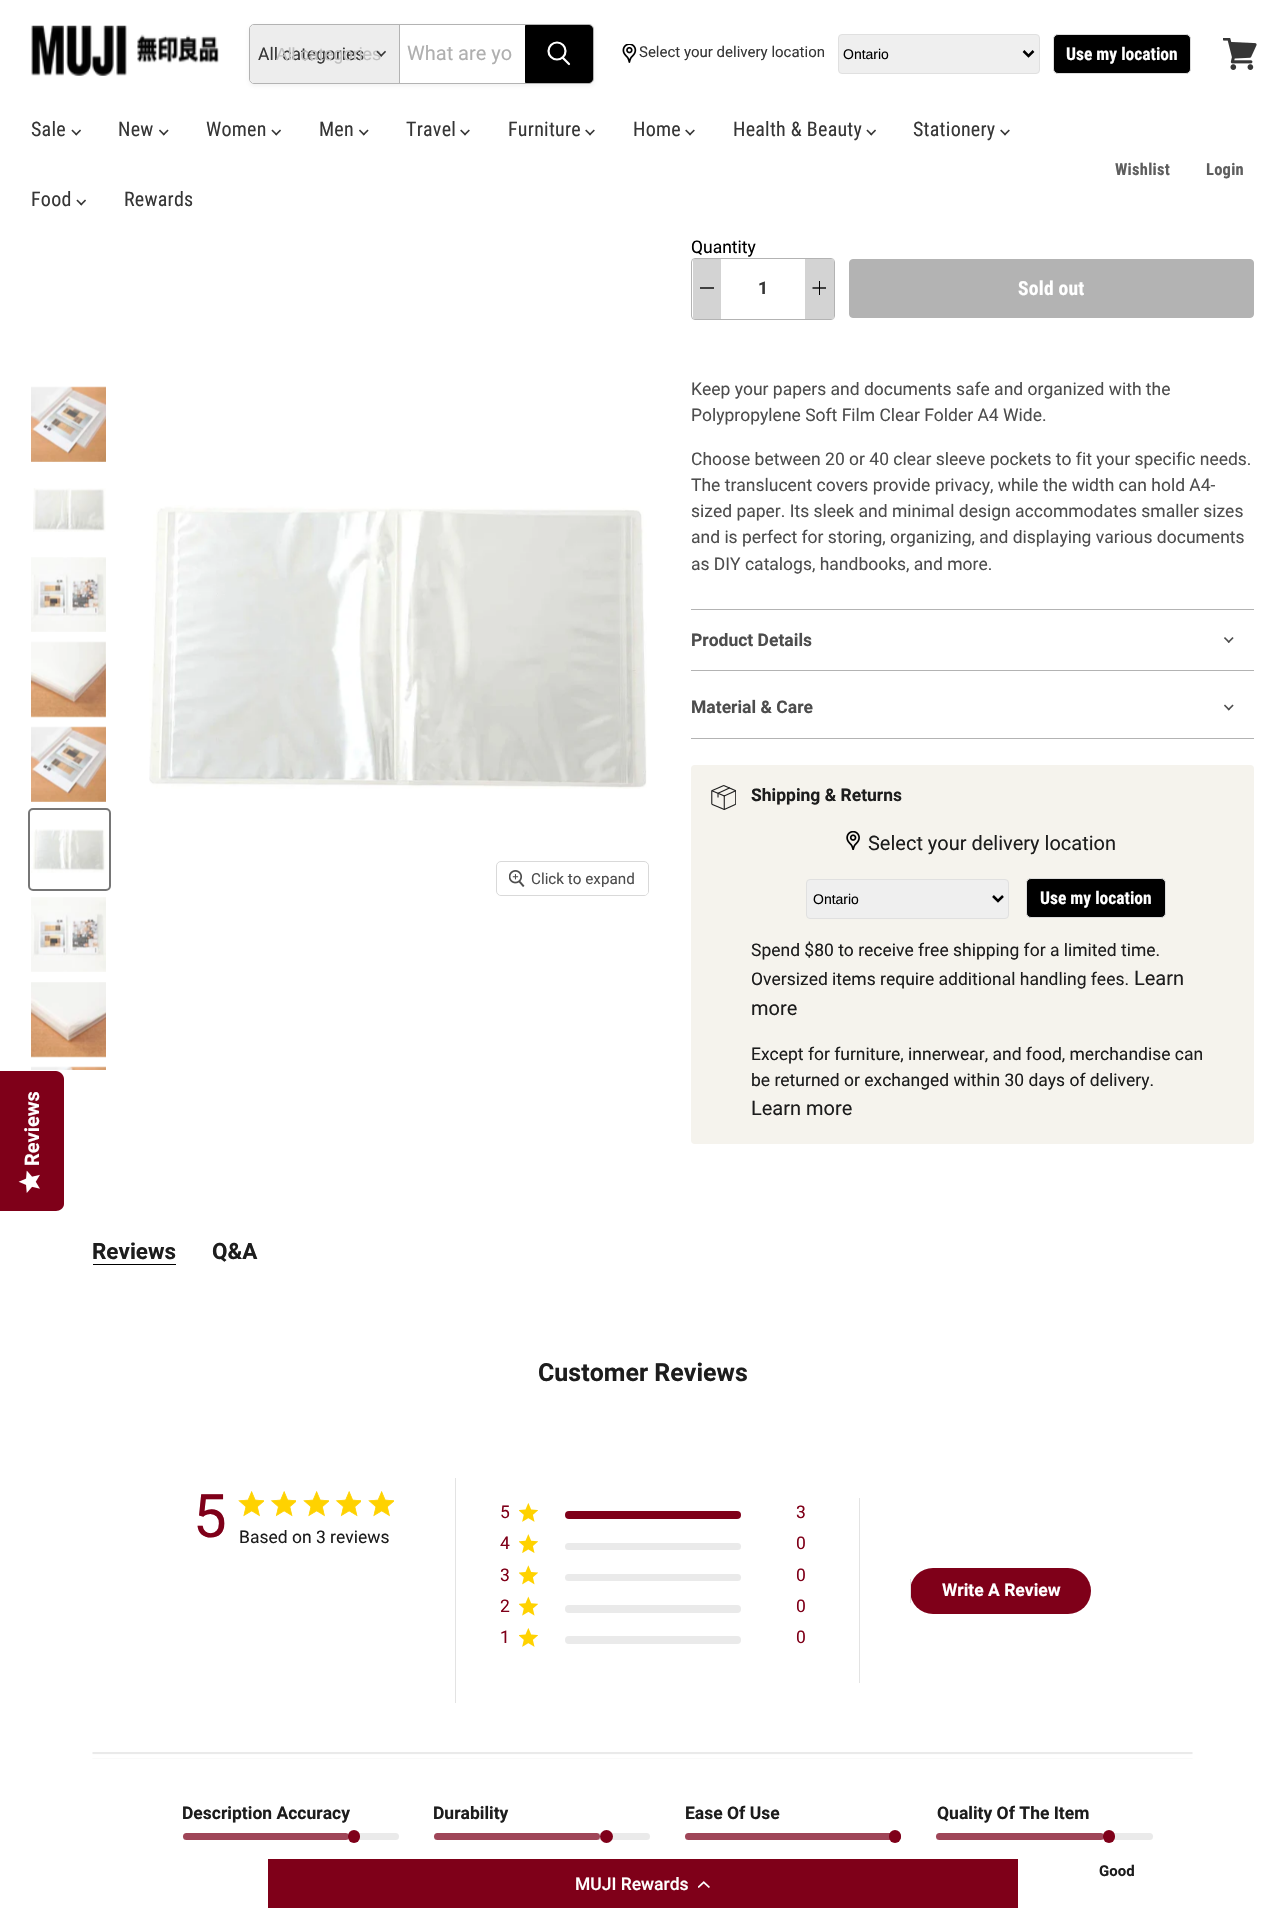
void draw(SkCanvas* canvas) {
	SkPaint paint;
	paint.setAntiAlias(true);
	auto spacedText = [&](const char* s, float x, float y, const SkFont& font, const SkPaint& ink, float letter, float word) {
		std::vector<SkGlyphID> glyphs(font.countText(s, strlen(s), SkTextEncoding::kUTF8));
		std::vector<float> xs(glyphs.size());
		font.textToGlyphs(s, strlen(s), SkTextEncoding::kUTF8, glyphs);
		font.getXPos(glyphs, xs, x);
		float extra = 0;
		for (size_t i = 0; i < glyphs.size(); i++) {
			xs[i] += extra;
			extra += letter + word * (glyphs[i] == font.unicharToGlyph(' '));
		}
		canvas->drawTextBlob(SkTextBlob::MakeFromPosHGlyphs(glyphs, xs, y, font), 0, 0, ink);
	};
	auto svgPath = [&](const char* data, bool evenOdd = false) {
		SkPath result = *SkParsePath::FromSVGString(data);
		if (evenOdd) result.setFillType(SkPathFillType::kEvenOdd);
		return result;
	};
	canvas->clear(0xffffffff);
	canvas->drawImageRect(SkImages::DeferredFromEncodedData(SkData::MakeFromFileName("img1.png")), SkRect::MakeXYWH(31, 25, 188, 51), SkSamplingOptions());
	canvas->save();
	canvas->clipPath(svgPath("M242 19H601V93H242ZM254 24H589C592 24 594 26 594 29V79C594 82 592 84 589 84H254C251 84 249 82 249 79V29C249 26 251 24 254 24Z", true), true);
	paint.setColor(0x1c808080);
	paint.setMaskFilter(SkMaskFilter::MakeBlur(kNormal_SkBlurStyle, 2));
	canvas->drawRoundRect(SkRect::MakeXYWH(249, 26, 345, 60), 5, 5, paint);
	paint.setMaskFilter(nullptr);
	canvas->restore();
	paint.setStroke(true);
	paint.setStrokeWidth(1);
	paint.setColor(0xffb3b3b3);
	canvas->drawRoundRect(SkRect::MakeXYWH(249.5, 24.5, 344, 59), 4.5, 4.5, paint);
	paint.setStroke(false);
	paint.setColor(0xffededed);
	canvas->drawPath(svgPath("M254 25H399V83H254C252 83 250 81 250 79V29C250 27 252 25 254 25Z"), paint);
	SkFont f1(fontMgr->matchFamilyStyle("Roboto", SkFontStyle::Normal()), 17.5);
	f1.setSubpixel(true);
	paint.setColor(0xff363636);
	canvas->drawString("All categories", 258, 60, f1, paint);
	SkFont f2(fontMgr->matchFamilyStyle("Liberation Sans", SkFontStyle::Normal()), 17.5);
	f2.setSubpixel(true);
	paint.setColor(0xffc0c0c0);
	canvas->drawString("All categories", 276, 60, f2, paint);
	canvas->drawImageRect(SkImages::DeferredFromEncodedData(SkData::MakeFromFileName("img2.png")), SkRect::MakeXYWH(376, 50, 10, 7), SkSamplingOptions());
	paint.setColor(0xffb3b3b3);
	canvas->drawRect(SkRect::MakeXYWH(399, 25, 1, 58), paint);
	SkFont f3(fontMgr->matchFamilyStyle("Roboto", SkFontStyle::Normal()), 20);
	f3.setSubpixel(true);
	paint.setColor(0xffafafaf);
	canvas->drawString("What are yo", 407, 60, f3, paint);
	paint.setColor(0xff000000);
	canvas->drawPath(svgPath("M525.5 25.5H589C591 25.5 592.5 27 592.5 29V79C592.5 81 591 82.5 589 82.5H525.5Z"), paint);
	paint.setStroke(true);
	canvas->drawPath(svgPath("M525.5 25.5H589C591 25.5 592.5 27 592.5 29V79C592.5 81 591 82.5 589 82.5H525.5Z"), paint);
	paint.setStrokeWidth(2.2);
	paint.setStrokeCap(SkPaint::kRound_Cap);
	paint.setColor(0xffffffff);
	canvas->drawPath(svgPath("M569 64L563 58"), paint);
	paint.setStrokeCap(SkPaint::kButt_Cap);
	canvas->drawCircle(557, 51, 8.5, paint);
	canvas->drawImageRect(SkImages::DeferredFromEncodedData(SkData::MakeFromFileName("img3.png")), SkRect::MakeXYWH(622, 44, 15, 19), SkSamplingOptions());
	SkFont f4(fontMgr->matchFamilyStyle("Roboto", SkFontStyle::Normal()), 15);
	f4.setSubpixel(true);
	paint.setStroke(false);
	paint.setColor(0xff363636);
	canvas->drawString("Select your delivery location", 639, 57, f4, paint);
	paint.setColor(0xffefefef);
	canvas->drawRoundRect(SkRect::MakeXYWH(838.5, 34.5, 201, 39), 3.5, 3.5, paint);
	paint.setStroke(true);
	paint.setStrokeWidth(1);
	paint.setColor(0xffe0e0e0);
	canvas->drawRoundRect(SkRect::MakeXYWH(838.5, 34.5, 201, 39), 3.5, 3.5, paint);
	paint.setStrokeWidth(2.5);
	paint.setColor(0xff000000);
	canvas->drawPath(svgPath("M1023.5 51L1028.5 56L1033.5 51"), paint);
	SkFont f5(fontMgr->matchFamilyStyle("Liberation Sans", SkFontStyle::Normal()), 14);
	f5.setSubpixel(true);
	paint.setStroke(false);
	canvas->drawString("Ontario", 843, 59, f5, paint);
	canvas->drawRoundRect(SkRect::MakeXYWH(1053.5, 34.5, 137, 39), 4.5, 4.5, paint);
	paint.setStroke(true);
	paint.setStrokeWidth(1);
	paint.setColor(0xffdddddd);
	canvas->drawRoundRect(SkRect::MakeXYWH(1053.5, 34.5, 137, 39), 4.5, 4.5, paint);
	SkFont f6(fontMgr->matchFamilyStyle("Roboto Condensed", SkFontStyle::Bold()), 17.5);
	f6.setSubpixel(true);
	paint.setStroke(false);
	paint.setColor(0xffffffff);
	canvas->drawString("Use my location", 1066, 60, f6, paint);
	canvas->drawImageRect(SkImages::DeferredFromEncodedData(SkData::MakeFromFileName("img4.png")), SkRect::MakeXYWH(1223, 38, 34, 32), SkSamplingOptions());
	SkFont f7(fontMgr->matchFamilyStyle("Roboto Condensed", SkFontStyle::Normal()), 20);
	f7.setSubpixel(true);
	paint.setColor(0xff363636);
	spacedText("Sale", 31, 136, f7, paint, 0.25, 0);
	canvas->drawImageRect(SkImages::DeferredFromEncodedData(SkData::MakeFromFileName("img5.png")), SkRect::MakeXYWH(71, 129, 10, 7), SkSamplingOptions());
	spacedText("New", 118, 136, f7, paint, 0.25, 0);
	canvas->drawImageRect(SkImages::DeferredFromEncodedData(SkData::MakeFromFileName("img6.png")), SkRect::MakeXYWH(159, 129, 10, 7), SkSamplingOptions());
	spacedText("Women", 206, 136, f7, paint, 0.25, 0);
	canvas->drawImageRect(SkImages::DeferredFromEncodedData(SkData::MakeFromFileName("img5.png")), SkRect::MakeXYWH(271, 129, 10, 7), SkSamplingOptions());
	spacedText("Men", 319, 136, f7, paint, 0.25, 0);
	canvas->drawImageRect(SkImages::DeferredFromEncodedData(SkData::MakeFromFileName("img6.png")), SkRect::MakeXYWH(359, 129, 10, 7), SkSamplingOptions());
	spacedText("Travel", 406, 136, f7, paint, 0.25, 0);
	canvas->drawImageRect(SkImages::DeferredFromEncodedData(SkData::MakeFromFileName("img7.png")), SkRect::MakeXYWH(460, 129, 10, 7), SkSamplingOptions());
	spacedText("Furniture", 508, 136, f7, paint, 0.25, 0);
	canvas->drawImageRect(SkImages::DeferredFromEncodedData(SkData::MakeFromFileName("img7.png")), SkRect::MakeXYWH(585, 129, 10, 7), SkSamplingOptions());
	spacedText("Home", 633, 136, f7, paint, 0.25, 0);
	canvas->drawImageRect(SkImages::DeferredFromEncodedData(SkData::MakeFromFileName("img7.png")), SkRect::MakeXYWH(685, 129, 10, 7), SkSamplingOptions());
	spacedText("Health & Beauty", 733, 136, f7, paint, 0.25, 0);
	canvas->drawImageRect(SkImages::DeferredFromEncodedData(SkData::MakeFromFileName("img5.png")), SkRect::MakeXYWH(866, 129, 10, 7), SkSamplingOptions());
	spacedText("Stationery", 913, 136, f7, paint, 0.25, 0);
	canvas->drawImageRect(SkImages::DeferredFromEncodedData(SkData::MakeFromFileName("img7.png")), SkRect::MakeXYWH(1000, 129, 10, 7), SkSamplingOptions());
	spacedText("Food", 31, 206, f7, paint, 0.25, 0);
	canvas->drawImageRect(SkImages::DeferredFromEncodedData(SkData::MakeFromFileName("img5.png")), SkRect::MakeXYWH(76, 199, 10, 7), SkSamplingOptions());
	spacedText("Rewards", 124, 206, f7, paint, 0.25, 0);
	SkFont f8(fontMgr->matchFamilyStyle("Roboto Condensed", SkFontStyle::Bold()), 16.5);
	f8.setSubpixel(true);
	paint.setColor(0xff5e5e5e);
	spacedText("Wishlist", 1115, 175, f8, paint, 0.25, 0);
	spacedText("Login", 1206, 175, f8, paint, 0.25, 0);
	paint.setColor(0xff7f0019);
	canvas->drawPath(svgPath("M0 1211V1071H56C60 1071 64 1075 64 1079V1204C64 1208 60 1211 56 1211Z"), paint);
	SkFont f9(fontMgr->matchFamilyStyle("Roboto", SkFontStyle::Bold()), 20);
	f9.setSubpixel(true);
	paint.setColor(0xffffffff);
	canvas->save();
	canvas->rotate(-90, 39, 1166);
	canvas->drawString("Reviews", 39, 1166, f9, paint);
	canvas->restore();
	canvas->drawImageRect(SkImages::DeferredFromEncodedData(SkData::MakeFromFileName("img8.png")), SkRect::MakeXYWH(18, 1170, 22, 23), SkSamplingOptions());
	canvas->drawImageRect(SkImages::DeferredFromEncodedData(SkData::MakeFromFileName("img9.png")), SkRect::MakeXYWH(31, 386, 75, 76), SkSamplingOptions());
	canvas->drawImageRect(SkImages::DeferredFromEncodedData(SkData::MakeFromFileName("img10.png")), SkRect::MakeXYWH(33, 488, 73, 44), SkSamplingOptions());
	canvas->drawImageRect(SkImages::DeferredFromEncodedData(SkData::MakeFromFileName("img11.png")), SkRect::MakeXYWH(31, 557, 75, 75), SkSamplingOptions());
	canvas->drawImageRect(SkImages::DeferredFromEncodedData(SkData::MakeFromFileName("img12.png")), SkRect::MakeXYWH(31, 641, 75, 77), SkSamplingOptions());
	canvas->drawImageRect(SkImages::DeferredFromEncodedData(SkData::MakeFromFileName("img13.png")), SkRect::MakeXYWH(31, 726, 75, 76), SkSamplingOptions());
	paint.setStroke(true);
	paint.setStrokeWidth(2);
	paint.setColor(0xff767676);
	canvas->drawRoundRect(SkRect::MakeXYWH(29, 809, 81, 81), 4, 4, paint);
	canvas->drawImageRect(SkImages::DeferredFromEncodedData(SkData::MakeFromFileName("img14.png")), SkRect::MakeXYWH(31, 829, 75, 44), SkSamplingOptions());
	canvas->drawImageRect(SkImages::DeferredFromEncodedData(SkData::MakeFromFileName("img15.png")), SkRect::MakeXYWH(31, 897, 75, 75), SkSamplingOptions());
	canvas->drawImageRect(SkImages::DeferredFromEncodedData(SkData::MakeFromFileName("img16.png")), SkRect::MakeXYWH(31, 982, 75, 76), SkSamplingOptions());
	canvas->drawImageRect(SkImages::DeferredFromEncodedData(SkData::MakeFromFileName("img17.png")), SkRect::MakeXYWH(31, 1066, 75, 4), SkSamplingOptions());
	canvas->drawImageRect(SkImages::DeferredFromEncodedData(SkData::MakeFromFileName("img18.png")), SkRect::MakeXYWH(149, 505, 498, 284), SkSamplingOptions());
	paint.setStrokeWidth(1);
	paint.setColor(0xffd9d9d9);
	canvas->drawRoundRect(SkRect::MakeXYWH(496.5, 861.5, 152, 34), 4.5, 4.5, paint);
	paint.setStroke(false);
	paint.setColor(0xe6ffffff);
	canvas->drawRoundRect(SkRect::MakeXYWH(498, 863, 150, 32), 4, 4, paint);
	canvas->drawImageRect(SkImages::DeferredFromEncodedData(SkData::MakeFromFileName("img19.png")), SkRect::MakeXYWH(509, 870, 16, 17), SkSamplingOptions());
	SkFont f10(fontMgr->matchFamilyStyle("Roboto", SkFontStyle::Normal()), 15.25);
	f10.setSubpixel(true);
	paint.setColor(0xff4d4d4d);
	canvas->drawString("Click to expand", 531, 884, f10, paint);
	paint.setColor(0xff000000);
	canvas->drawString("Quantity", 691, 253, f1, paint);
	paint.setStroke(true);
	paint.setColor(0xffb3b3b3);
	canvas->drawRoundRect(SkRect::MakeXYWH(691.5, 258.5, 143, 61), 3.5, 3.5, paint);
	paint.setStroke(false);
	paint.setColor(0xffd3d3d3);
	canvas->drawRect(SkRect::MakeXYWH(693, 259, 28, 60), paint);
	paint.setStroke(true);
	paint.setStrokeWidth(1.4);
	paint.setColor(0xff000000);
	canvas->drawPath(svgPath("M700 288H714"), paint);
	SkFont f11(fontMgr->matchFamilyStyle("Roboto", SkFontStyle::Bold()), 17.5);
	f11.setSubpixel(true);
	paint.setStroke(false);
	paint.setColor(0xff363636);
	canvas->drawString("1", 758, 294, f11, paint);
	paint.setColor(0xffd3d3d3);
	canvas->drawRect(SkRect::MakeXYWH(805, 259, 29, 60), paint);
	paint.setStroke(true);
	paint.setColor(0xff000000);
	canvas->drawPath(svgPath("M812.5 288H826"), paint);
	paint.setStroke(false);
	canvas->drawRect(SkRect::MakeXYWH(819, 281, 1, 14), paint);
	paint.setColor(0xffb3b3b3);
	canvas->drawRoundRect(SkRect::MakeXYWH(849.5, 259.5, 404, 58), 3.5, 3.5, paint);
	paint.setStroke(true);
	paint.setStrokeWidth(1);
	canvas->drawRoundRect(SkRect::MakeXYWH(849.5, 259.5, 404, 58), 3.5, 3.5, paint);
	SkFont f12(fontMgr->matchFamilyStyle("Roboto Condensed", SkFontStyle::Bold()), 19.5);
	f12.setSubpixel(true);
	paint.setStroke(false);
	paint.setColor(0xffffffff);
	spacedText("Sold out", 1018, 295, f12, paint, 0.25, 0);
	paint.setColor(0xff4d4d4d);
	canvas->drawString("Keep your papers and documents safe and organized with the", 691, 395, f1, paint);
	canvas->drawString("Polypropylene Soft Film Clear Folder A4 Wide.", 691, 421, f1, paint);
	canvas->drawString("Choose between 20 or 40 clear sleeve pockets to fit your specific needs.", 691, 465, f1, paint);
	canvas->drawString("The translucent covers provide privacy, while the width can hold A4-", 691, 491, f1, paint);
	canvas->drawString("sized paper. Its sleek and minimal design accommodates smaller sizes", 691, 517, f1, paint);
	canvas->drawString("and is perfect for storing, organizing, and displaying various documents", 691, 543, f1, paint);
	canvas->drawString("as DIY catalogs, handbooks, and more.", 691, 570, f1, paint);
	paint.setColor(0xffb3b3b3);
	canvas->drawRect(SkRect::MakeXYWH(691, 609, 563, 1), paint);
	canvas->drawRect(SkRect::MakeXYWH(691, 670, 563, 1), paint);
	paint.setColor(0xff4d4d4d);
	canvas->drawString("Product Details", 691, 646, f11, paint);
	canvas->drawImageRect(SkImages::DeferredFromEncodedData(SkData::MakeFromFileName("img20.png")), SkRect::MakeXYWH(1224, 637, 10, 6), SkSamplingOptions());
	paint.setColor(0xffb3b3b3);
	canvas->drawRect(SkRect::MakeXYWH(691, 738, 563, 1), paint);
	paint.setColor(0xff4d4d4d);
	canvas->drawString("Material & Care", 691, 713, f11, paint);
	canvas->drawImageRect(SkImages::DeferredFromEncodedData(SkData::MakeFromFileName("img21.png")), SkRect::MakeXYWH(1224, 704, 10, 7), SkSamplingOptions());
	paint.setColor(0xfff5f3ed);
	canvas->drawRoundRect(SkRect::MakeXYWH(691, 765, 563, 379), 4, 4, paint);
	canvas->drawImageRect(SkImages::DeferredFromEncodedData(SkData::MakeFromFileName("img22.png")), SkRect::MakeXYWH(711, 785, 25, 25), SkSamplingOptions());
	paint.setColor(0xff1d1d1d);
	canvas->drawString("Shipping & Returns", 751, 801, f11, paint);
	canvas->drawImageRect(SkImages::DeferredFromEncodedData(SkData::MakeFromFileName("img23.png")), SkRect::MakeXYWH(846, 831, 14, 19), SkSamplingOptions());
	canvas->drawString("Select your delivery location", 868, 850, f3, paint);
	paint.setColor(0xffefefef);
	canvas->drawRoundRect(SkRect::MakeXYWH(806.5, 879.5, 202, 39), 3.5, 3.5, paint);
	paint.setStroke(true);
	paint.setColor(0xffe0e0e0);
	canvas->drawRoundRect(SkRect::MakeXYWH(806.5, 879.5, 202, 39), 3.5, 3.5, paint);
	paint.setStrokeWidth(2.5);
	paint.setColor(0xff000000);
	canvas->drawPath(svgPath("M993 896L998 901L1003 896"), paint);
	paint.setStroke(false);
	canvas->drawString("Ontario", 813, 904, f5, paint);
	canvas->drawRoundRect(SkRect::MakeXYWH(1026.5, 878.5, 139, 39), 4.5, 4.5, paint);
	paint.setStroke(true);
	paint.setStrokeWidth(1);
	paint.setColor(0xffdddddd);
	canvas->drawRoundRect(SkRect::MakeXYWH(1026.5, 878.5, 139, 39), 4.5, 4.5, paint);
	paint.setStroke(false);
	paint.setColor(0xffffffff);
	canvas->drawString("Use my location", 1040, 904, f6, paint);
	paint.setColor(0xff1d1d1d);
	canvas->drawString("Spend $80 to receive free shipping for a limited time.", 751, 956, f1, paint);
	canvas->drawString("Oversized items require additional handling fees.", 751, 985, f1, paint);
	canvas->drawString("Learn", 1134, 985, f3, paint);
	canvas->drawString("more", 751, 1015, f3, paint);
	canvas->drawString("Except for furniture, innerwear, and food, merchandise can", 751, 1060, f1, paint);
	canvas->drawString("be returned or exchanged within 30 days of delivery.", 751, 1086, f1, paint);
	canvas->drawString("Learn more", 751, 1115, f3, paint);
	paint.setColor(0xff000000);
	canvas->drawRect(SkRect::MakeXYWH(93, 1264, 83, 1), paint);
	SkFont f13(fontMgr->matchFamilyStyle("Roboto", SkFontStyle::Bold()), 22.5);
	f13.setSubpixel(true);
	paint.setColor(0xff1d1d1d);
	canvas->drawString("Reviews", 92, 1259, f13, paint);
	canvas->drawString("Q&A", 212, 1259, f13, paint);
	SkFont f14(fontMgr->matchFamilyStyle("Roboto", SkFontStyle::Bold()), 25);
	f14.setSubpixel(true);
	canvas->drawString("Customer Reviews", 538, 1381, f14, paint);
	SkFont f15(fontMgr->matchFamilyStyle("Roboto", SkFontStyle::Normal()), 60);
	f15.setSubpixel(true);
	paint.setColor(0xff7f0019);
	canvas->drawString("5", 193, 1537, f15, paint);
	canvas->drawImageRect(SkImages::DeferredFromEncodedData(SkData::MakeFromFileName("img24.png")), SkRect::MakeXYWH(238, 1491, 26, 26), SkSamplingOptions());
	canvas->drawImageRect(SkImages::DeferredFromEncodedData(SkData::MakeFromFileName("img25.png")), SkRect::MakeXYWH(270, 1491, 26, 26), SkSamplingOptions());
	canvas->drawImageRect(SkImages::DeferredFromEncodedData(SkData::MakeFromFileName("img24.png")), SkRect::MakeXYWH(303, 1491, 26, 26), SkSamplingOptions());
	canvas->drawImageRect(SkImages::DeferredFromEncodedData(SkData::MakeFromFileName("img25.png")), SkRect::MakeXYWH(335, 1491, 26, 26), SkSamplingOptions());
	canvas->drawImageRect(SkImages::DeferredFromEncodedData(SkData::MakeFromFileName("img24.png")), SkRect::MakeXYWH(368, 1491, 26, 26), SkSamplingOptions());
	paint.setColor(0xff1d1d1d);
	canvas->drawString("Based on 3 reviews", 239, 1543, f1, paint);
	paint.setColor(0xffe3e3e3);
	canvas->drawRect(SkRect::MakeXYWH(455, 1478, 1, 225), paint);
	canvas->drawRect(SkRect::MakeXYWH(859, 1498, 1, 185), paint);
	paint.setColor(0xff7f0019);
	canvas->drawString("5", 500, 1518, f1, paint);
	canvas->drawImageRect(SkImages::DeferredFromEncodedData(SkData::MakeFromFileName("img26.png")), SkRect::MakeXYWH(519, 1503, 19, 19), SkSamplingOptions());
	canvas->drawRoundRect(SkRect::MakeXYWH(565, 1511, 176, 8), 4, 4, paint);
	canvas->drawString("3", 796, 1518, f1, paint);
	canvas->drawString("4", 500, 1549, f1, paint);
	canvas->drawImageRect(SkImages::DeferredFromEncodedData(SkData::MakeFromFileName("img27.png")), SkRect::MakeXYWH(519, 1534, 19, 19), SkSamplingOptions());
	paint.setColor(0xffeaeaea);
	canvas->drawRoundRect(SkRect::MakeXYWH(565, 1543, 176, 7), 3.5, 3.5, paint);
	paint.setColor(0xff7f0019);
	canvas->drawString("0", 796, 1549, f1, paint);
	canvas->drawString("3", 500, 1581, f1, paint);
	canvas->drawImageRect(SkImages::DeferredFromEncodedData(SkData::MakeFromFileName("img28.png")), SkRect::MakeXYWH(519, 1565, 19, 20), SkSamplingOptions());
	paint.setColor(0xffeaeaea);
	canvas->drawRoundRect(SkRect::MakeXYWH(565, 1574, 176, 7), 3.5, 3.5, paint);
	paint.setColor(0xff7f0019);
	canvas->drawString("0", 796, 1581, f1, paint);
	canvas->drawString("2", 500, 1612, f1, paint);
	canvas->drawImageRect(SkImages::DeferredFromEncodedData(SkData::MakeFromFileName("img29.png")), SkRect::MakeXYWH(519, 1596, 19, 20), SkSamplingOptions());
	paint.setColor(0xffeaeaea);
	canvas->drawRoundRect(SkRect::MakeXYWH(565, 1605, 176, 8), 4, 4, paint);
	paint.setColor(0xff7f0019);
	canvas->drawString("0", 796, 1612, f1, paint);
	canvas->drawString("1", 500, 1643, f1, paint);
	canvas->drawImageRect(SkImages::DeferredFromEncodedData(SkData::MakeFromFileName("img26.png")), SkRect::MakeXYWH(519, 1628, 19, 19), SkSamplingOptions());
	paint.setColor(0xffeaeaea);
	canvas->drawRoundRect(SkRect::MakeXYWH(565, 1636, 176, 8), 4, 4, paint);
	paint.setColor(0xff7f0019);
	canvas->drawString("0", 796, 1643, f1, paint);
	canvas->drawRoundRect(SkRect::MakeXYWH(910, 1568, 181, 46), 23, 23, paint);
	paint.setColor(0xffe3e3e3);
	canvas->drawRect(SkRect::MakeXYWH(910, 1579, 1, 24), paint);
	paint.setColor(0xffffffff);
	canvas->drawString("Write A Review", 942, 1596, f11, paint);
	canvas->drawImageRect(SkImages::DeferredFromEncodedData(SkData::MakeFromFileName("img30.png")), SkRect::MakeXYWH(92, 1752, 1101, 7), SkSamplingOptions());
	paint.setColor(0xff1d1d1d);
	canvas->drawString("Description Accuracy", 182, 1819, f11, paint);
	paint.setColor(0xffeaeaea);
	canvas->drawRoundRect(SkRect::MakeXYWH(183, 1833, 216, 7), 3.5, 3.5, paint);
	paint.setColor(0xb37f0019);
	canvas->drawRoundRect(SkRect::MakeXYWH(183, 1833, 166, 7), 3.5, 3.5, paint);
	paint.setColor(0xff7f0019);
	canvas->drawRoundRect(SkRect::MakeXYWH(348, 1830, 12, 13), 6, 6, paint);
	paint.setColor(0xff1d1d1d);
	canvas->drawString("Durability", 433, 1819, f11, paint);
	paint.setColor(0xffeaeaea);
	canvas->drawRoundRect(SkRect::MakeXYWH(434, 1833, 216, 7), 3.5, 3.5, paint);
	paint.setColor(0xff7f0019);
	canvas->drawCircle(606.5, 1836.5, 6.5, paint);
	paint.setColor(0xb37f0019);
	canvas->drawRoundRect(SkRect::MakeXYWH(434, 1833, 166, 7), 3.5, 3.5, paint);
	paint.setColor(0xff1d1d1d);
	canvas->drawString("Ease Of Use", 685, 1819, f11, paint);
	paint.setColor(0xffeaeaea);
	canvas->drawRoundRect(SkRect::MakeXYWH(685, 1833, 216, 7), 3.5, 3.5, paint);
	paint.setColor(0xb37f0019);
	canvas->drawRoundRect(SkRect::MakeXYWH(685, 1833, 216, 7), 3.5, 3.5, paint);
	paint.setColor(0xff7f0019);
	canvas->drawRoundRect(SkRect::MakeXYWH(889, 1830, 12, 13), 6, 6, paint);
	paint.setColor(0xff1d1d1d);
	canvas->drawString("Quality Of The Item", 937, 1819, f11, paint);
	paint.setColor(0xffeaeaea);
	canvas->drawRoundRect(SkRect::MakeXYWH(936, 1833, 217, 7), 3.5, 3.5, paint);
	paint.setColor(0xb37f0019);
	canvas->drawRoundRect(SkRect::MakeXYWH(936, 1833, 168, 7), 3.5, 3.5, paint);
	paint.setColor(0xff7f0019);
	canvas->drawRoundRect(SkRect::MakeXYWH(1103, 1830, 12, 13), 6, 6, paint);
	SkFont f16(fontMgr->matchFamilyStyle("Roboto", SkFontStyle::Bold()), 15);
	f16.setSubpixel(true);
	paint.setColor(0xff1d1d1d);
	canvas->drawString("Good", 1099, 1876, f16, paint);
	paint.setColor(0xff7f0019);
	canvas->drawRect(SkRect::MakeXYWH(268, 1859, 750, 49), paint);
	SkFont f17(fontMgr->matchFamilyStyle("Roboto", SkFontStyle(500, SkFontStyle::kNormal_Width, SkFontStyle::kUpright_Slant)), 17.5);
	f17.setSubpixel(true);
	paint.setColor(0xffffffff);
	canvas->drawString("MUJI Rewards", 575, 1890, f17, paint);
	canvas->drawImageRect(SkImages::DeferredFromEncodedData(SkData::MakeFromFileName("img31.png")), SkRect::MakeXYWH(698, 1881, 12, 7), SkSamplingOptions());
}
